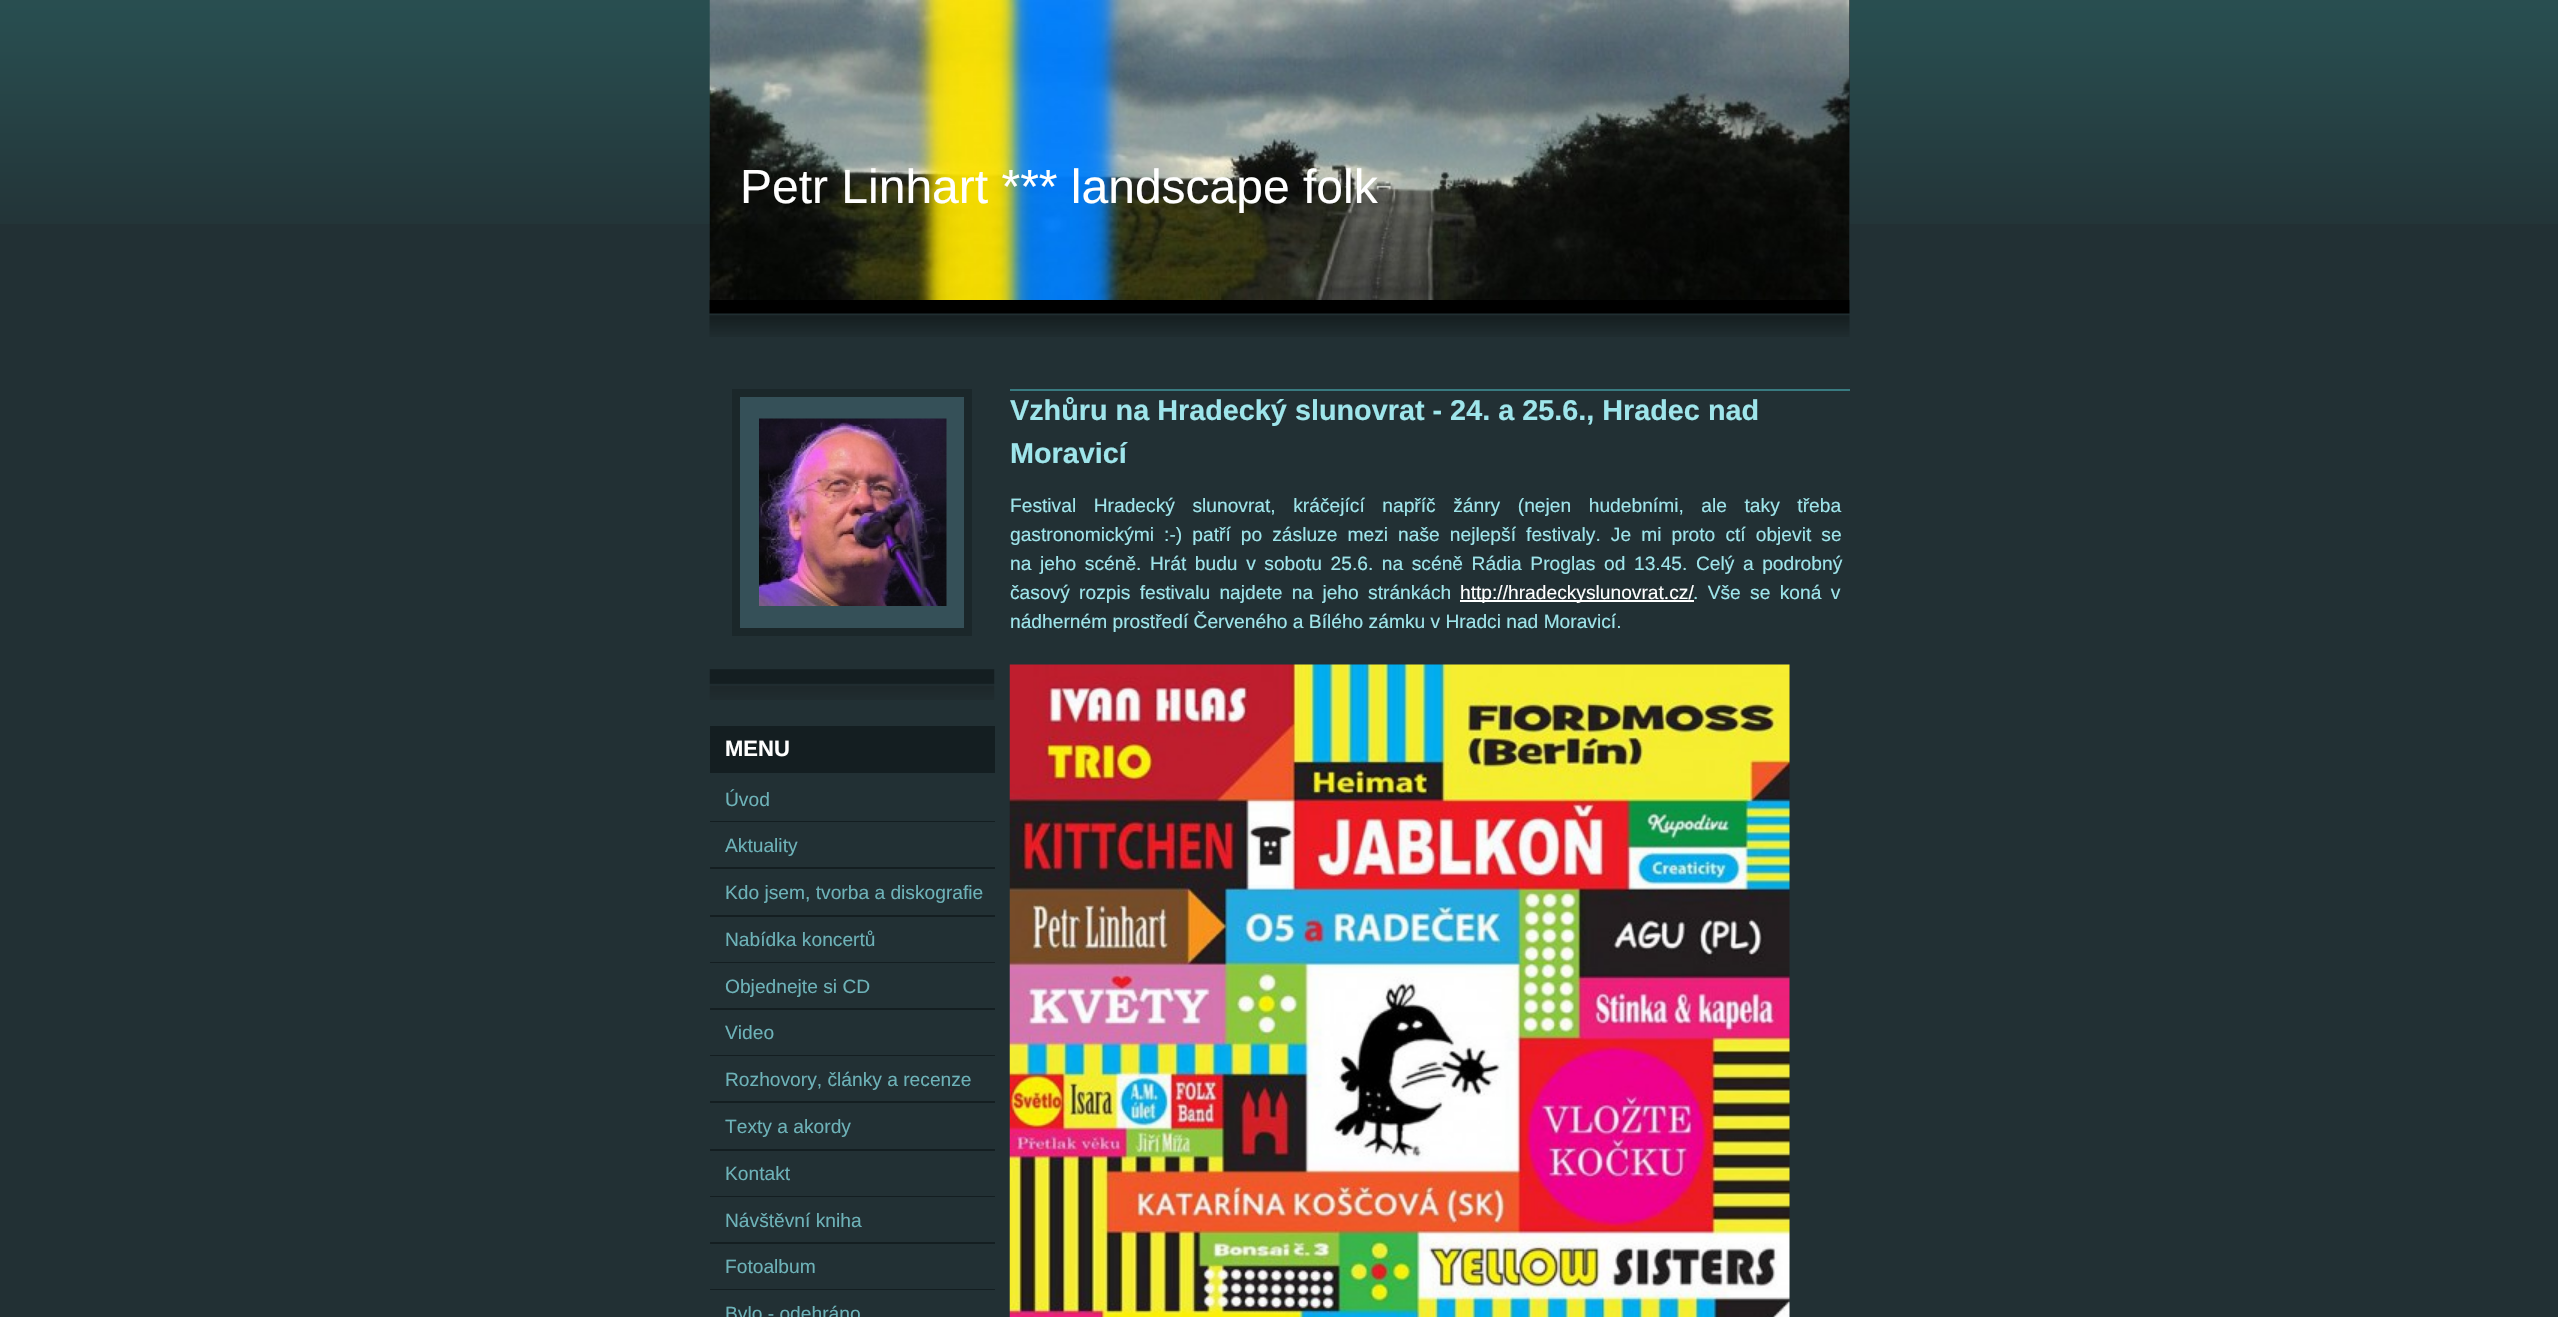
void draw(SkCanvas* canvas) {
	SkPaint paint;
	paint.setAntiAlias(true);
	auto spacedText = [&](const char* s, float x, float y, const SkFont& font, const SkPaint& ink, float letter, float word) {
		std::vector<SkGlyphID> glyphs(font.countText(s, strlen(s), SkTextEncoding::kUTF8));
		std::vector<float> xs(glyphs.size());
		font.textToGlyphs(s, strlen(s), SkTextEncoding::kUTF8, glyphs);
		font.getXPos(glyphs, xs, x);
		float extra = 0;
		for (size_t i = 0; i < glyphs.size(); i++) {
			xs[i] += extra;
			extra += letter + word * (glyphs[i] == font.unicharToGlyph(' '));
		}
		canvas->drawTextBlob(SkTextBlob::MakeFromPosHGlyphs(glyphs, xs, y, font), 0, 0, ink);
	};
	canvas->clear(0xff223034);
	canvas->drawImageRect(SkImages::DeferredFromEncodedData(SkData::MakeFromFileName("img1.png")), SkRect::MakeXYWH(0, 0, 2558, 224), SkSamplingOptions());
	canvas->drawImageRect(SkImages::DeferredFromEncodedData(SkData::MakeFromFileName("img2.png")), SkRect::MakeXYWH(709, 300, 1141, 37), SkSamplingOptions());
	paint.setColor(0xff223034);
	canvas->drawRect(SkRect::MakeXYWH(1849, 0, 1, 224), paint);
	canvas->drawImageRect(SkImages::DeferredFromEncodedData(SkData::MakeFromFileName("img3.png")), SkRect::MakeXYWH(709, 0, 1141, 300), SkSamplingOptions());
	SkFont f1(fontMgr->matchFamilyStyle("Liberation Sans", SkFontStyle::Normal()), 48);
	f1.setSubpixel(true);
	paint.setColor(0xffffffff);
	canvas->drawString("Petr Linhart *** landscape folk", 740, 203, f1, paint);
	paint.setColor(0xff397b81);
	canvas->drawRect(SkRect::MakeXYWH(1010, 389, 840, 2), paint);
	SkFont f2(fontMgr->matchFamilyStyle("Liberation Sans", SkFontStyle::Bold()), 28.8);
	f2.setSubpixel(true);
	paint.setColor(0xff9ee5eb);
	canvas->drawString("Vzhůru na Hradecký slunovrat - 24. a 25.6., Hradec nad", 1010, 420, f2, paint);
	canvas->drawString("Moravicí", 1010, 463, f2, paint);
	SkFont f3(fontMgr->matchFamilyStyle("Liberation Sans", SkFontStyle::Normal()), 19.2);
	f3.setSubpixel(true);
	spacedText("Festival Hradecký slunovrat, kráčející napříč žánry (nejen hudebními, ale taky třeba", 1010, 512, f3, paint, 0, 12.25);
	spacedText("gastronomickými :-) patří po zásluze mezi naše nejlepší festivaly. Je mi proto ctí objevit se", 1010, 541, f3, paint, 0, 4.75);
	spacedText("na jeho scéně. Hrát budu v sobotu 25.6. na scéně Rádia Proglas od 13.45. Celý a podrobný", 1010, 570, f3, paint, 0, 3.25);
	spacedText("časový rozpis festivalu najdete na jeho stránkách", 1010, 599, f3, paint, 0, 4);
	paint.setColor(0xffffffff);
	canvas->drawRect(SkRect::MakeXYWH(1460, 600, 234, 2), paint);
	canvas->drawString("http://hradeckyslunovrat.cz/", 1460, 599, f3, paint);
	paint.setColor(0xff9ee5eb);
	spacedText(". Vše se koná v", 1693, 599, f3, paint, 0, 4);
	canvas->drawString("nádherném prostředí Červeného a Bílého zámku v Hradci nad Moravicí.", 1010, 628, f3, paint);
	canvas->drawImageRect(SkImages::DeferredFromEncodedData(SkData::MakeFromFileName("img4.png")), SkRect::MakeXYWH(1009, 664, 781, 653), SkSamplingOptions());
	canvas->drawImageRect(SkImages::DeferredFromEncodedData(SkData::MakeFromFileName("img5.png")), SkRect::MakeXYWH(709, 669, 286, 31), SkSamplingOptions());
	paint.setColor(0xff355058);
	canvas->drawRect(SkRect::MakeXYWH(736, 393, 232, 239), paint);
	paint.setStroke(true);
	paint.setStrokeWidth(8);
	paint.setColor(0xff1b272a);
	canvas->drawRect(SkRect::MakeXYWH(736, 393, 232, 239), paint);
	canvas->drawImageRect(SkImages::DeferredFromEncodedData(SkData::MakeFromFileName("img6.png")), SkRect::MakeXYWH(759, 418, 188, 188), SkSamplingOptions());
	paint.setStroke(false);
	paint.setColor(0xff141e21);
	canvas->drawRect(SkRect::MakeXYWH(710, 726, 285, 47), paint);
	SkFont f4(fontMgr->matchFamilyStyle("Liberation Sans", SkFontStyle::Bold()), 22);
	f4.setSubpixel(true);
	paint.setColor(0xffffffff);
	canvas->drawString("MENU", 725, 756, f4, paint);
	paint.setColor(0xff141e21);
	canvas->drawRect(SkRect::MakeXYWH(710, 821, 285, 1), paint);
	paint.setColor(0xff6db2b8);
	canvas->drawString("Úvod", 725, 806, f3, paint);
	paint.setColor(0xff141e21);
	canvas->drawRect(SkRect::MakeXYWH(710, 867, 285, 2), paint);
	paint.setColor(0xff6db2b8);
	canvas->drawString("Aktuality", 725, 852, f3, paint);
	paint.setColor(0xff141e21);
	canvas->drawRect(SkRect::MakeXYWH(710, 915, 285, 2), paint);
	paint.setColor(0xff6db2b8);
	canvas->drawString("Kdo jsem, tvorba a diskografie", 725, 899, f3, paint);
	paint.setColor(0xff141e21);
	canvas->drawRect(SkRect::MakeXYWH(710, 962, 285, 1), paint);
	paint.setColor(0xff6db2b8);
	canvas->drawString("Nabídka koncertů", 725, 946, f3, paint);
	paint.setColor(0xff141e21);
	canvas->drawRect(SkRect::MakeXYWH(710, 1008, 285, 2), paint);
	paint.setColor(0xff6db2b8);
	canvas->drawString("Objednejte si CD", 725, 993, f3, paint);
	paint.setColor(0xff141e21);
	canvas->drawRect(SkRect::MakeXYWH(710, 1055, 285, 1), paint);
	paint.setColor(0xff6db2b8);
	canvas->drawString("Video", 725, 1039, f3, paint);
	paint.setColor(0xff141e21);
	canvas->drawRect(SkRect::MakeXYWH(710, 1101, 285, 2), paint);
	paint.setColor(0xff6db2b8);
	canvas->drawString("Rozhovory, články a recenze", 725, 1086, f3, paint);
	paint.setColor(0xff141e21);
	canvas->drawRect(SkRect::MakeXYWH(710, 1149, 285, 2), paint);
	paint.setColor(0xff6db2b8);
	canvas->drawString("Texty a akordy", 725, 1133, f3, paint);
	paint.setColor(0xff141e21);
	canvas->drawRect(SkRect::MakeXYWH(710, 1196, 285, 1), paint);
	paint.setColor(0xff6db2b8);
	canvas->drawString("Kontakt", 725, 1180, f3, paint);
	paint.setColor(0xff141e21);
	canvas->drawRect(SkRect::MakeXYWH(710, 1242, 285, 2), paint);
	paint.setColor(0xff6db2b8);
	canvas->drawString("Návštěvní kniha", 725, 1227, f3, paint);
	paint.setColor(0xff141e21);
	canvas->drawRect(SkRect::MakeXYWH(710, 1289, 285, 1), paint);
	paint.setColor(0xff6db2b8);
	canvas->drawString("Fotoalbum", 725, 1273, f3, paint);
	canvas->drawString("Bylo - odehráno", 725, 1320, f3, paint);
}
